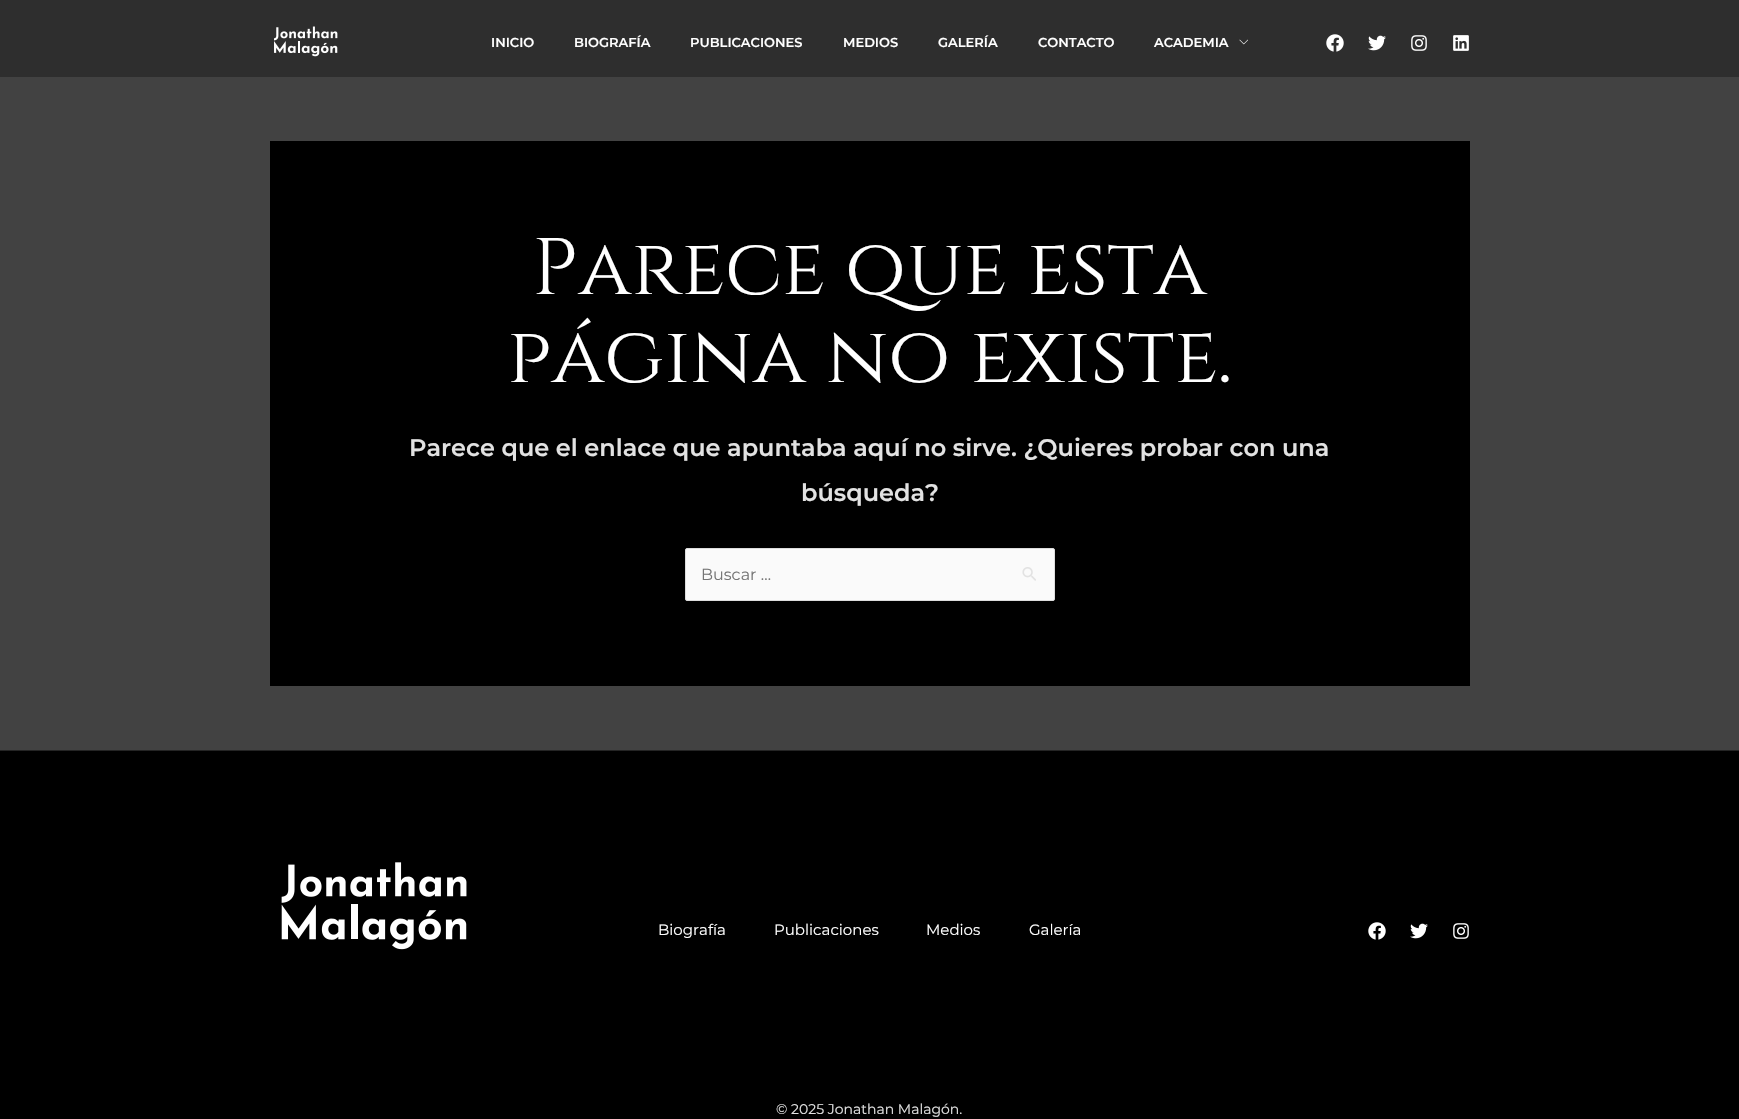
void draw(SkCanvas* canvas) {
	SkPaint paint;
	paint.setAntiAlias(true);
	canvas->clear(0xff424242);
	paint.setColor(0xff2e2e2e);
	canvas->drawRect(SkRect::MakeXYWH(0, 0, 1739, 77), paint);
	canvas->drawImageRect(SkImages::DeferredFromEncodedData(SkData::MakeFromFileName("img1.png")), SkRect::MakeXYWH(274, 26, 64, 31), SkSamplingOptions());
	SkFont f1(fontMgr->matchFamilyStyle("Montserrat", SkFontStyle(600, SkFontStyle::kNormal_Width, SkFontStyle::kUpright_Slant)), 13);
	f1.setSubpixel(true);
	paint.setColor(0xffffffff);
	canvas->drawString("INICIO", 491, 47, f1, paint);
	canvas->drawString("BIOGRAFÍA", 574, 47, f1, paint);
	canvas->drawString("PUBLICACIONES", 690, 47, f1, paint);
	canvas->drawString("MEDIOS", 843, 47, f1, paint);
	canvas->drawString("GALERÍA", 938, 47, f1, paint);
	canvas->drawString("CONTACTO", 1038, 47, f1, paint);
	canvas->drawString("ACADEMIA", 1154, 47, f1, paint);
	canvas->drawImageRect(SkImages::DeferredFromEncodedData(SkData::MakeFromFileName("img2.png")), SkRect::MakeXYWH(1239, 39, 9, 6), SkSamplingOptions());
	canvas->drawImageRect(SkImages::DeferredFromEncodedData(SkData::MakeFromFileName("img3.png")), SkRect::MakeXYWH(1326, 34, 18, 18), SkSamplingOptions());
	canvas->drawImageRect(SkImages::DeferredFromEncodedData(SkData::MakeFromFileName("img4.png")), SkRect::MakeXYWH(1368, 35, 18, 16), SkSamplingOptions());
	canvas->drawImageRect(SkImages::DeferredFromEncodedData(SkData::MakeFromFileName("img5.png")), SkRect::MakeXYWH(1411, 35, 16, 16), SkSamplingOptions());
	canvas->drawImageRect(SkImages::DeferredFromEncodedData(SkData::MakeFromFileName("img6.png")), SkRect::MakeXYWH(1453, 35, 16, 16), SkSamplingOptions());
	paint.setColor(0xff000000);
	canvas->drawRect(SkRect::MakeXYWH(270, 141, 1200, 545), paint);
	SkFont f2(fontMgr->matchFamilyStyle("Cinzel", SkFontStyle::Normal()), 80);
	f2.setSubpixel(true);
	paint.setColor(0xffffffff);
	canvas->drawString("Parece que esta", 532, 294, f2, paint);
	canvas->drawString("página no existe.", 507, 382, f2, paint);
	SkFont f3(fontMgr->matchFamilyStyle("Montserrat", SkFontStyle(600, SkFontStyle::kNormal_Width, SkFontStyle::kUpright_Slant)), 24);
	f3.setSubpixel(true);
	paint.setColor(0xffe2e2e2);
	canvas->drawString("Parece que el enlace que apuntaba aquí no sirve. ¿Quieres probar con una", 409, 456, f3, paint);
	canvas->drawString("búsqueda?", 801, 501, f3, paint);
	paint.setColor(0xfffafafa);
	canvas->drawRoundRect(SkRect::MakeXYWH(685.5, 548.5, 369, 52), 1.5, 1.5, paint);
	paint.setStroke(true);
	paint.setStrokeWidth(1);
	paint.setColor(0xffdddddd);
	canvas->drawRoundRect(SkRect::MakeXYWH(685.5, 548.5, 369, 52), 1.5, 1.5, paint);
	SkFont f4(fontMgr->matchFamilyStyle("Montserrat", SkFontStyle::Normal()), 16);
	f4.setSubpixel(true);
	paint.setStroke(false);
	paint.setColor(0xff757575);
	canvas->drawString("Buscar …", 701, 580, f4, paint);
	canvas->drawImageRect(SkImages::DeferredFromEncodedData(SkData::MakeFromFileName("img7.png")), SkRect::MakeXYWH(1022, 567, 14, 14), SkSamplingOptions());
	paint.setColor(0xff000000);
	canvas->drawRect(SkRect::MakeXYWH(0, 751, 1739, 368), paint);
	paint.setColor(0xff242424);
	canvas->drawRect(SkRect::MakeXYWH(0, 750, 1739, 1), paint);
	canvas->drawImageRect(SkImages::DeferredFromEncodedData(SkData::MakeFromFileName("img8.png")), SkRect::MakeXYWH(281, 862, 186, 88), SkSamplingOptions());
	SkFont f5(fontMgr->matchFamilyStyle("Montserrat", SkFontStyle::Normal()), 15);
	f5.setSubpixel(true);
	paint.setColor(0xffffffff);
	canvas->drawString("Biografía", 658, 935, f5, paint);
	canvas->drawString("Publicaciones", 774, 935, f5, paint);
	canvas->drawString("Medios", 926, 935, f5, paint);
	canvas->drawString("Galería", 1029, 935, f5, paint);
	canvas->drawImageRect(SkImages::DeferredFromEncodedData(SkData::MakeFromFileName("img9.png")), SkRect::MakeXYWH(1368, 922, 18, 18), SkSamplingOptions());
	canvas->drawImageRect(SkImages::DeferredFromEncodedData(SkData::MakeFromFileName("img10.png")), SkRect::MakeXYWH(1410, 923, 18, 16), SkSamplingOptions());
	canvas->drawImageRect(SkImages::DeferredFromEncodedData(SkData::MakeFromFileName("img11.png")), SkRect::MakeXYWH(1453, 923, 16, 16), SkSamplingOptions());
	SkFont f6(fontMgr->matchFamilyStyle("Montserrat", SkFontStyle::Normal()), 14);
	f6.setSubpixel(true);
	paint.setColor(0xffe2e2e2);
	canvas->drawString("© 2025 Jonathan Malagón.", 776, 1114, f6, paint);
}
